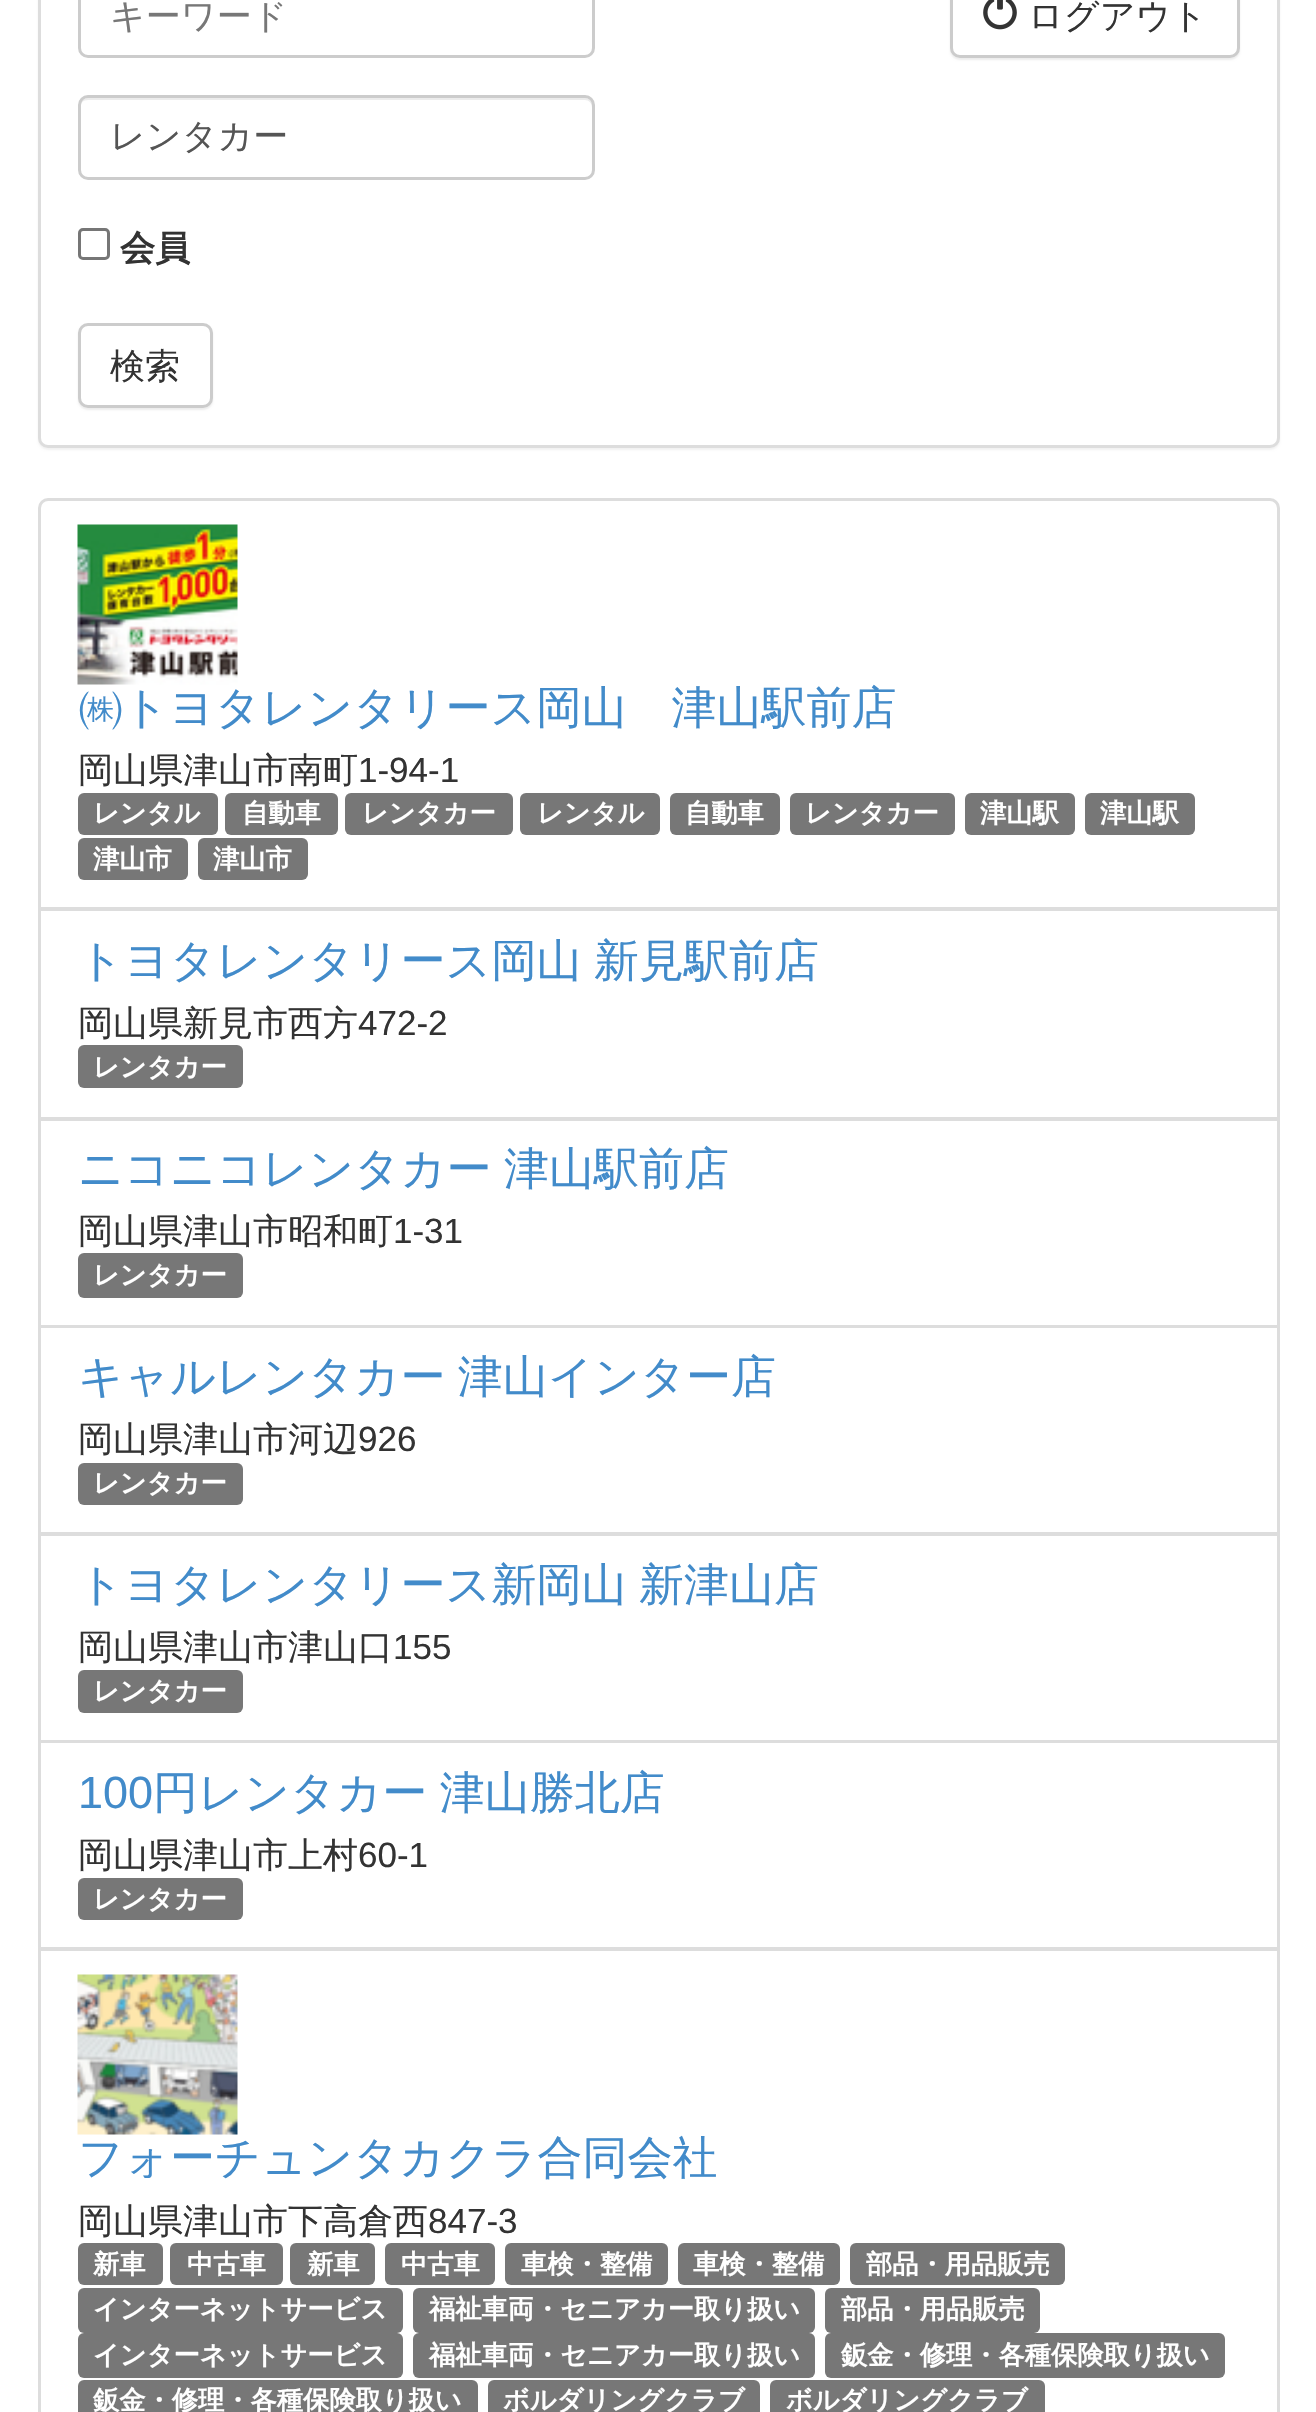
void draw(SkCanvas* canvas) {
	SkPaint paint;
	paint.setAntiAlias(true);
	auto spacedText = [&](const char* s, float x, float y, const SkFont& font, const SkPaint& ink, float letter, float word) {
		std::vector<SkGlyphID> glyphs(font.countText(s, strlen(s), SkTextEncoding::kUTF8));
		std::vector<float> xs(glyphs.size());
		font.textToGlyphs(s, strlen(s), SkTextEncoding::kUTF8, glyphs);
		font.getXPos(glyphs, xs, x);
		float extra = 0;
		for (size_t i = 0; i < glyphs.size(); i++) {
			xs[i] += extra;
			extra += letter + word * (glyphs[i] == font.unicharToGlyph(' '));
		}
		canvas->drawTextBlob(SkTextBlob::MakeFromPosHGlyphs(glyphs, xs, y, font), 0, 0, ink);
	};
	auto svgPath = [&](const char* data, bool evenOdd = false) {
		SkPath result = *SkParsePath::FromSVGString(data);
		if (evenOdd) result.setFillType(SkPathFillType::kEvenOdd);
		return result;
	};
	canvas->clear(0xffffffff);
	paint.setColor(0x0d000000);
	paint.setMaskFilter(SkMaskFilter::MakeBlur(kNormal_SkBlurStyle, 1));
	canvas->drawRoundRect(SkRect::MakeXYWH(38, -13, 1242, 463), 10, 10, paint);
	paint.setMaskFilter(nullptr);
	paint.setColor(0xffffffff);
	canvas->drawRoundRect(SkRect::MakeXYWH(39.5, -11.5, 1239, 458), 8.5, 8.5, paint);
	paint.setStroke(true);
	paint.setStrokeWidth(3);
	paint.setColor(0xffdddddd);
	canvas->drawRoundRect(SkRect::MakeXYWH(39.5, -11.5, 1239, 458), 8.5, 8.5, paint);
	paint.setColor(0xffcccccc);
	canvas->drawRoundRect(SkRect::MakeXYWH(79.5, -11.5, 514, 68), 8.5, 8.5, paint);
	SkFont f1(fontMgr->matchFamilyStyle("WenQuanYi Zen Hei", SkFontStyle(500, SkFontStyle::kNormal_Width, SkFontStyle::kUpright_Slant)), 35);
	f1.setSubpixel(true);
	paint.setStroke(false);
	paint.setColor(0xff777777);
	canvas->drawString("キーワード", 110, 28, f1, paint);
	paint.setColor(0xffececec);
	canvas->drawPath(svgPath("M88 100H585C589 100 592 103 592 108V174C593 173 593 172 593 170V106C593 102 589 98 585 98H88C84 98 80 102 80 106V108C80 103 83 100 88 100Z"), paint);
	paint.setStroke(true);
	paint.setColor(0xffcccccc);
	canvas->drawRoundRect(SkRect::MakeXYWH(79.5, 96.5, 514, 82), 8.5, 8.5, paint);
	paint.setStroke(false);
	paint.setColor(0xff555555);
	canvas->drawString("レンタカー", 110, 148, f1, paint);
	paint.setStroke(true);
	paint.setColor(0xff767676);
	canvas->drawRoundRect(SkRect::MakeXYWH(79.5, 229.5, 29, 29), 3.5, 3.5, paint);
	SkFont f2(fontMgr->matchFamilyStyle("WenQuanYi Zen Hei", SkFontStyle::Bold()), 35);
	f2.setSubpixel(true);
	paint.setStroke(false);
	paint.setColor(0xff333333);
	canvas->drawString("会員", 120, 260, f2, paint);
	paint.setColor(0x12000000);
	paint.setMaskFilter(SkMaskFilter::MakeBlur(kNormal_SkBlurStyle, 1));
	canvas->drawRoundRect(SkRect::MakeXYWH(78, 325, 135, 85), 10, 10, paint);
	paint.setMaskFilter(nullptr);
	paint.setColor(0xffffffff);
	canvas->drawRoundRect(SkRect::MakeXYWH(79.5, 324.5, 132, 82), 8.5, 8.5, paint);
	paint.setStroke(true);
	paint.setColor(0xffcccccc);
	canvas->drawRoundRect(SkRect::MakeXYWH(79.5, 324.5, 132, 82), 8.5, 8.5, paint);
	paint.setStroke(false);
	paint.setColor(0xff333333);
	canvas->drawString("検索", 110, 378, f1, paint);
	paint.setColor(0x12000000);
	paint.setMaskFilter(SkMaskFilter::MakeBlur(kNormal_SkBlurStyle, 1));
	canvas->drawRoundRect(SkRect::MakeXYWH(950, -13, 290, 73), 10, 10, paint);
	paint.setMaskFilter(nullptr);
	paint.setColor(0xffffffff);
	canvas->drawRoundRect(SkRect::MakeXYWH(951.5, -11.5, 287, 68), 8.5, 8.5, paint);
	paint.setStroke(true);
	paint.setColor(0xffcccccc);
	canvas->drawRoundRect(SkRect::MakeXYWH(951.5, -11.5, 287, 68), 8.5, 8.5, paint);
	canvas->drawImageRect(SkImages::DeferredFromEncodedData(SkData::MakeFromFileName("img1.png")), SkRect::MakeXYWH(983, 0, 34, 30), SkSamplingOptions());
	paint.setStroke(false);
	paint.setColor(0xff333333);
	canvas->drawString("ログアウト", 1028, 28, f1, paint);
	paint.setStroke(true);
	paint.setColor(0xffdddddd);
	canvas->drawPath(svgPath("M48 499.5H1270C1274.5 499.5 1278.5 503.5 1278.5 508V908.5H39.5V508C39.5 503.5 43.5 499.5 48 499.5Z"), paint);
	canvas->drawImageRect(SkImages::DeferredFromEncodedData(SkData::MakeFromFileName("img2.png")), SkRect::MakeXYWH(77, 524, 161, 161), SkSamplingOptions());
	SkFont f3(fontMgr->matchFamilyStyle("WenQuanYi Zen Hei", SkFontStyle(500, SkFontStyle::kNormal_Width, SkFontStyle::kUpright_Slant)), 45);
	f3.setSubpixel(true);
	paint.setStroke(false);
	paint.setColor(0xff428bca);
	canvas->drawString("㈱トヨタレンタリース岡山　津山駅前店", 78, 723, f3, paint);
	paint.setColor(0xff333333);
	canvas->drawString("岡山県津山市南町", 78, 782, f1, paint);
	SkFont f4(fontMgr->matchFamilyStyle("Liberation Sans", SkFontStyle::Normal()), 35);
	f4.setSubpixel(true);
	canvas->drawString("1-94-1", 358, 782, f4, paint);
	paint.setColor(0xff777777);
	canvas->drawRoundRect(SkRect::MakeXYWH(78, 793, 140, 42), 6, 6, paint);
	SkFont f5(fontMgr->matchFamilyStyle("WenQuanYi Zen Hei", SkFontStyle::Bold()), 26.25);
	f5.setSubpixel(true);
	paint.setColor(0xffffffff);
	canvas->drawString("レンタル", 93, 822, f5, paint);
	paint.setColor(0xff777777);
	canvas->drawRoundRect(SkRect::MakeXYWH(225, 793, 113, 42), 6, 6, paint);
	paint.setColor(0xffffffff);
	canvas->drawString("自動車", 242, 822, f5, paint);
	paint.setColor(0xff777777);
	canvas->drawRoundRect(SkRect::MakeXYWH(345, 793, 168, 42), 6, 6, paint);
	paint.setColor(0xffffffff);
	canvas->drawString("レンタカー", 362, 822, f5, paint);
	paint.setColor(0xff777777);
	canvas->drawRoundRect(SkRect::MakeXYWH(520, 793, 140, 42), 6, 6, paint);
	paint.setColor(0xffffffff);
	canvas->drawString("レンタル", 537, 822, f5, paint);
	paint.setColor(0xff777777);
	canvas->drawRoundRect(SkRect::MakeXYWH(670, 793, 110, 42), 6, 6, paint);
	paint.setColor(0xffffffff);
	canvas->drawString("自動車", 685, 822, f5, paint);
	paint.setColor(0xff777777);
	canvas->drawRoundRect(SkRect::MakeXYWH(790, 793, 165, 42), 6, 6, paint);
	paint.setColor(0xffffffff);
	canvas->drawString("レンタカー", 805, 822, f5, paint);
	paint.setColor(0xff777777);
	canvas->drawRoundRect(SkRect::MakeXYWH(965, 793, 110, 42), 6, 6, paint);
	paint.setColor(0xffffffff);
	canvas->drawString("津山駅", 980, 822, f5, paint);
	paint.setColor(0xff777777);
	canvas->drawRoundRect(SkRect::MakeXYWH(1085, 793, 110, 42), 6, 6, paint);
	paint.setColor(0xffffffff);
	canvas->drawString("津山駅", 1100, 822, f5, paint);
	paint.setColor(0xff777777);
	canvas->drawRoundRect(SkRect::MakeXYWH(78, 838, 110, 42), 6, 6, paint);
	paint.setColor(0xffffffff);
	canvas->drawString("津山市", 93, 868, f5, paint);
	paint.setColor(0xff777777);
	canvas->drawRoundRect(SkRect::MakeXYWH(198, 838, 110, 42), 6, 6, paint);
	paint.setColor(0xffffffff);
	canvas->drawString("津山市", 213, 868, f5, paint);
	paint.setStroke(true);
	paint.setColor(0xffdddddd);
	canvas->drawRect(SkRect::MakeXYWH(39.5, 909.5, 1239, 209), paint);
	paint.setStroke(false);
	paint.setColor(0xff428bca);
	spacedText("トヨタレンタリース岡山 新見駅前店", 78, 976, f3, paint, 0, -1);
	paint.setColor(0xff333333);
	canvas->drawString("岡山県新見市西方", 78, 1035, f1, paint);
	canvas->drawString("472-2", 358, 1035, f4, paint);
	paint.setColor(0xff777777);
	canvas->drawRoundRect(SkRect::MakeXYWH(78, 1045, 165, 43), 6, 6, paint);
	paint.setColor(0xffffffff);
	canvas->drawString("レンタカー", 93, 1076, f5, paint);
	paint.setStroke(true);
	paint.setColor(0xffdddddd);
	canvas->drawRect(SkRect::MakeXYWH(39.5, 1119.5, 1239, 207), paint);
	paint.setStroke(false);
	paint.setColor(0xff428bca);
	spacedText("ニコニコレンタカー 津山駅前店", 78, 1184, f3, paint, 0, -1);
	paint.setColor(0xff333333);
	canvas->drawString("岡山県津山市昭和町", 78, 1243, f1, paint);
	canvas->drawString("1-31", 393, 1243, f4, paint);
	paint.setColor(0xff777777);
	canvas->drawRoundRect(SkRect::MakeXYWH(78, 1253, 165, 45), 6, 6, paint);
	paint.setColor(0xffffffff);
	canvas->drawString("レンタカー", 93, 1284, f5, paint);
	paint.setStroke(true);
	paint.setColor(0xffdddddd);
	canvas->drawRect(SkRect::MakeXYWH(39.5, 1326.5, 1239, 207), paint);
	paint.setStroke(false);
	paint.setColor(0xff428bca);
	spacedText("キャルレンタカー 津山インター店", 78, 1392, f3, paint, 0, -1);
	paint.setColor(0xff333333);
	canvas->drawString("岡山県津山市河辺", 78, 1451, f1, paint);
	canvas->drawString("926", 358, 1451, f4, paint);
	paint.setColor(0xff777777);
	canvas->drawRoundRect(SkRect::MakeXYWH(78, 1463, 165, 42), 6, 6, paint);
	paint.setColor(0xffffffff);
	canvas->drawString("レンタカー", 93, 1492, f5, paint);
	paint.setStroke(true);
	paint.setColor(0xffdddddd);
	canvas->drawRect(SkRect::MakeXYWH(39.5, 1534.5, 1239, 207), paint);
	paint.setStroke(false);
	paint.setColor(0xff428bca);
	spacedText("トヨタレンタリース新岡山 新津山店", 78, 1600, f3, paint, 0, -1);
	paint.setColor(0xff333333);
	canvas->drawString("岡山県津山市津山口", 78, 1659, f1, paint);
	canvas->drawString("155", 393, 1659, f4, paint);
	paint.setColor(0xff777777);
	canvas->drawRoundRect(SkRect::MakeXYWH(78, 1670, 165, 43), 6, 6, paint);
	paint.setColor(0xffffffff);
	canvas->drawString("レンタカー", 93, 1700, f5, paint);
	paint.setStroke(true);
	paint.setColor(0xffdddddd);
	canvas->drawRect(SkRect::MakeXYWH(39.5, 1741.5, 1239, 207), paint);
	SkFont f6(fontMgr->matchFamilyStyle("Liberation Sans", SkFontStyle::Normal()), 45);
	f6.setSubpixel(true);
	paint.setStroke(false);
	paint.setColor(0xff428bca);
	canvas->drawString("100", 78, 1808, f6, paint);
	spacedText("円レンタカー 津山勝北店", 153, 1808, f3, paint, 0, -1);
	paint.setColor(0xff333333);
	canvas->drawString("岡山県津山市上村", 78, 1867, f1, paint);
	canvas->drawString("60-1", 358, 1867, f4, paint);
	paint.setColor(0xff777777);
	canvas->drawRoundRect(SkRect::MakeXYWH(78, 1878, 165, 42), 6, 6, paint);
	paint.setColor(0xffffffff);
	canvas->drawString("レンタカー", 93, 1908, f5, paint);
	paint.setStroke(true);
	paint.setColor(0xffdddddd);
	canvas->drawRect(SkRect::MakeXYWH(39.5, 1949.5, 1239, 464), paint);
	canvas->drawImageRect(SkImages::DeferredFromEncodedData(SkData::MakeFromFileName("img3.png")), SkRect::MakeXYWH(77, 1974, 161, 161), SkSamplingOptions());
	paint.setStroke(false);
	paint.setColor(0xff428bca);
	canvas->drawString("フォーチュンタカクラ合同会社", 78, 2173, f3, paint);
	paint.setColor(0xff333333);
	canvas->drawString("岡山県津山市下高倉西", 78, 2233, f1, paint);
	canvas->drawString("847-3", 428, 2233, f4, paint);
	paint.setColor(0xff777777);
	canvas->drawRoundRect(SkRect::MakeXYWH(78, 2243, 85, 42), 6, 6, paint);
	paint.setColor(0xffffffff);
	canvas->drawString("新車", 93, 2273, f5, paint);
	paint.setColor(0xff777777);
	canvas->drawRoundRect(SkRect::MakeXYWH(170, 2243, 113, 42), 6, 6, paint);
	paint.setColor(0xffffffff);
	canvas->drawString("中古車", 187, 2273, f5, paint);
	paint.setColor(0xff777777);
	canvas->drawRoundRect(SkRect::MakeXYWH(290, 2243, 85, 42), 6, 6, paint);
	paint.setColor(0xffffffff);
	canvas->drawString("新車", 307, 2273, f5, paint);
	paint.setColor(0xff777777);
	canvas->drawRoundRect(SkRect::MakeXYWH(385, 2243, 110, 42), 6, 6, paint);
	paint.setColor(0xffffffff);
	canvas->drawString("中古車", 401, 2273, f5, paint);
	paint.setColor(0xff777777);
	canvas->drawRoundRect(SkRect::MakeXYWH(505, 2243, 163, 42), 6, 6, paint);
	paint.setColor(0xffffffff);
	canvas->drawString("車検・整備", 521, 2273, f5, paint);
	paint.setColor(0xff777777);
	canvas->drawRoundRect(SkRect::MakeXYWH(678, 2243, 162, 42), 6, 6, paint);
	paint.setColor(0xffffffff);
	canvas->drawString("車検・整備", 693, 2273, f5, paint);
	paint.setColor(0xff777777);
	canvas->drawRoundRect(SkRect::MakeXYWH(850, 2243, 215, 42), 6, 6, paint);
	paint.setColor(0xffffffff);
	canvas->drawString("部品・用品販売", 866, 2273, f5, paint);
	paint.setColor(0xff777777);
	canvas->drawRoundRect(SkRect::MakeXYWH(78, 2288, 325, 45), 6, 6, paint);
	paint.setColor(0xffffffff);
	canvas->drawString("インターネットサービス", 93, 2318, f5, paint);
	paint.setColor(0xff777777);
	canvas->drawRoundRect(SkRect::MakeXYWH(413, 2288, 402, 45), 6, 6, paint);
	paint.setColor(0xffffffff);
	canvas->drawString("福祉車両・セニアカー取り扱い", 429, 2318, f5, paint);
	paint.setColor(0xff777777);
	canvas->drawRoundRect(SkRect::MakeXYWH(825, 2288, 215, 45), 6, 6, paint);
	paint.setColor(0xffffffff);
	canvas->drawString("部品・用品販売", 841, 2318, f5, paint);
	paint.setColor(0xff777777);
	canvas->drawRoundRect(SkRect::MakeXYWH(78, 2333, 325, 45), 6, 6, paint);
	paint.setColor(0xffffffff);
	canvas->drawString("インターネットサービス", 93, 2364, f5, paint);
	paint.setColor(0xff777777);
	canvas->drawRoundRect(SkRect::MakeXYWH(413, 2333, 402, 45), 6, 6, paint);
	paint.setColor(0xffffffff);
	canvas->drawString("福祉車両・セニアカー取り扱い", 429, 2364, f5, paint);
	paint.setColor(0xff777777);
	canvas->drawRoundRect(SkRect::MakeXYWH(825, 2333, 400, 45), 6, 6, paint);
	paint.setColor(0xffffffff);
	canvas->drawString("鈑金・修理・各種保険取り扱い", 841, 2364, f5, paint);
	paint.setColor(0xff777777);
	canvas->drawRoundRect(SkRect::MakeXYWH(78, 2380, 400, 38), 6, 6, paint);
	paint.setColor(0xffffffff);
	canvas->drawString("鈑金・修理・各種保険取り扱い", 93, 2409, f5, paint);
	paint.setColor(0xff777777);
	canvas->drawRoundRect(SkRect::MakeXYWH(488, 2380, 272, 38), 6, 6, paint);
	paint.setColor(0xffffffff);
	canvas->drawString("ボルダリングクラブ", 503, 2409, f5, paint);
	paint.setColor(0xff777777);
	canvas->drawRoundRect(SkRect::MakeXYWH(770, 2380, 275, 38), 6, 6, paint);
	paint.setColor(0xffffffff);
	canvas->drawString("ボルダリングクラブ", 786, 2409, f5, paint);
}
